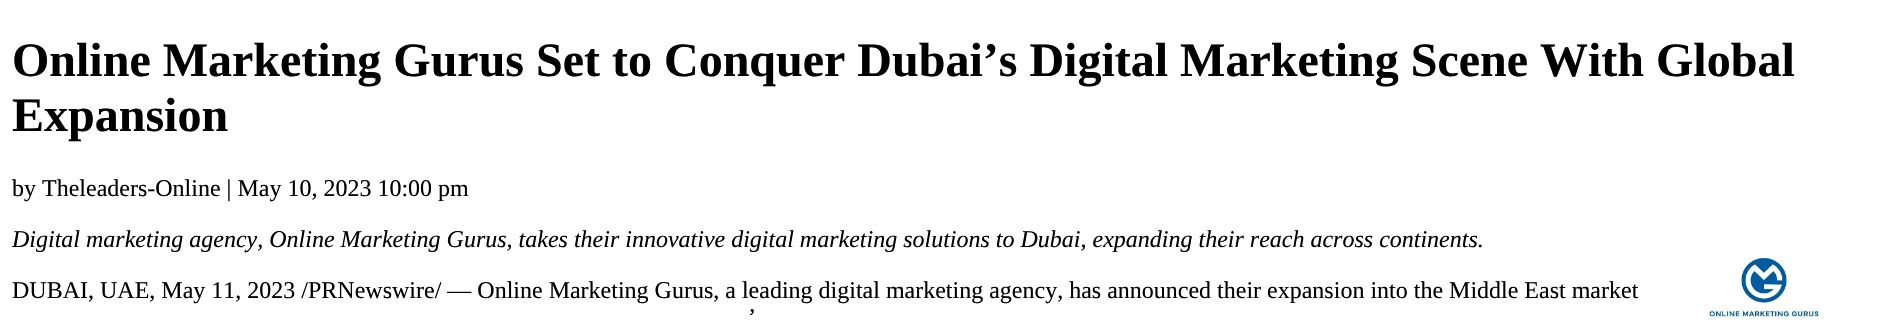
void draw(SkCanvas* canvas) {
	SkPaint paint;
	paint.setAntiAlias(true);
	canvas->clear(0xffffffff);
	SkFont f1(fontMgr->matchFamilyStyle("Liberation Serif", SkFontStyle::Bold()), 48);
	f1.setSubpixel(true);
	paint.setColor(0xff000000);
	canvas->drawString("Online Marketing Gurus Set to Conquer Dubai’s Digital Marketing Scene With Global", 12, 76, f1, paint);
	canvas->drawString("Expansion", 12, 131, f1, paint);
	SkFont f2(fontMgr->matchFamilyStyle("Liberation Serif", SkFontStyle::Normal()), 24);
	f2.setSubpixel(true);
	canvas->drawString("by Theleaders-Online | May 10, 2023 10:00 pm", 12, 196, f2, paint);
	SkFont f3(fontMgr->matchFamilyStyle("Liberation Serif", SkFontStyle::Italic()), 24);
	f3.setSubpixel(true);
	canvas->drawString("Digital marketing agency, Online Marketing Gurus, takes their innovative digital marketing solutions to Dubai, expanding their reach across continents.", 12, 247, f3, paint);
	canvas->drawString("DUBAI, UAE, May 11, 2023 /PRNewswire/ — Online Marketing Gurus, a leading digital marketing agency, has announced their expansion into the Middle East market", 12, 298, f2, paint);
	canvas->drawString("’", 748, 325, f2, paint);
	canvas->drawImageRect(SkImages::DeferredFromEncodedData(SkData::MakeFromFileName("img1.png")), SkRect::MakeXYWH(1708, 256, 112, 63), SkSamplingOptions());
}
